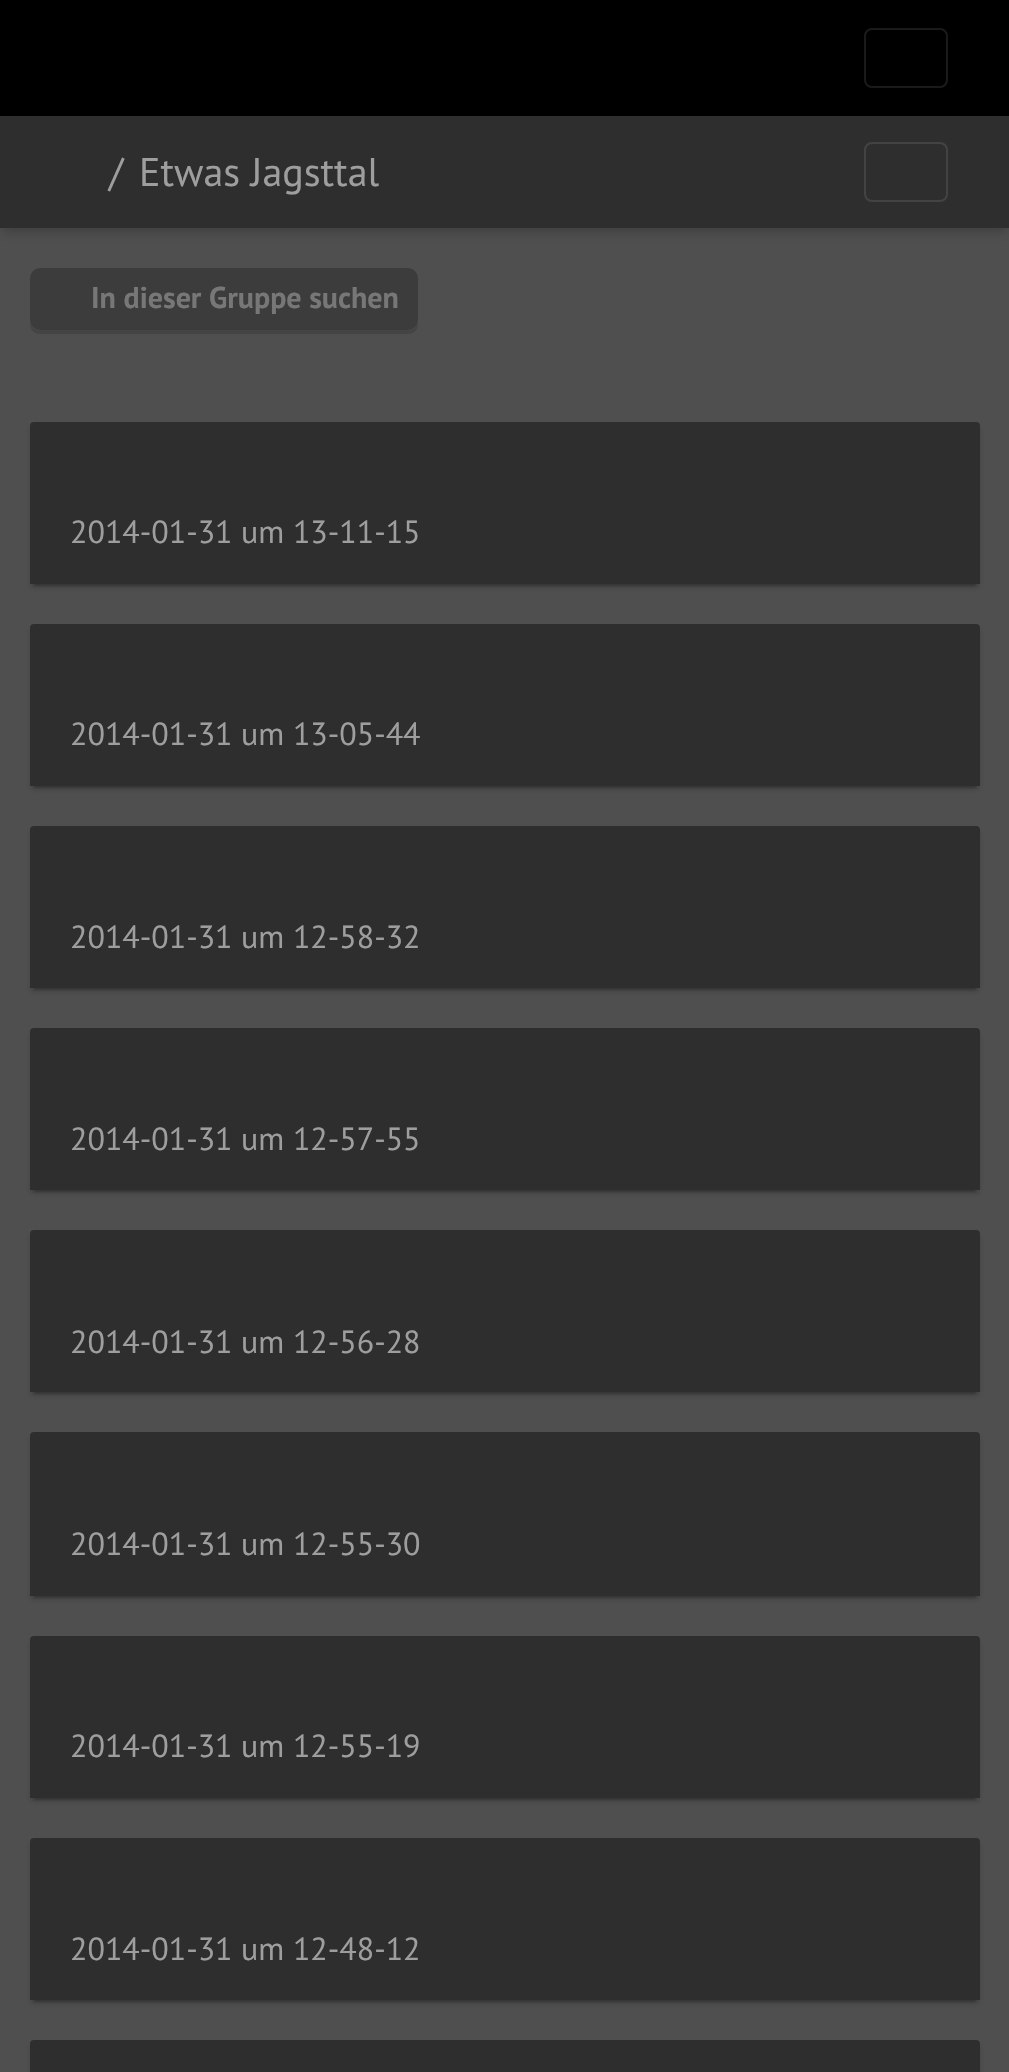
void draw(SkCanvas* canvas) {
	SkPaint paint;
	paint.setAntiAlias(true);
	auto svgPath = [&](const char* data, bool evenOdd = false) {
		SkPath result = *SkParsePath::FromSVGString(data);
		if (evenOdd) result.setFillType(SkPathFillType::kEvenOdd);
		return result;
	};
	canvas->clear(0xff4f4f4f);
	paint.setColor(0x33000000);
	paint.setMaskFilter(SkMaskFilter::MakeBlur(kNormal_SkBlurStyle, 5));
	canvas->drawRect(SkRect::MakeXYWH(2, 124, 1006, 108), paint);
	paint.setMaskFilter(nullptr);
	paint.setColor(0xff000000);
	canvas->drawRect(SkRect::MakeXYWH(0, 0, 1009, 116), paint);
	paint.setStroke(true);
	paint.setStrokeWidth(2);
	paint.setColor(0xff1a1a1a);
	canvas->drawRoundRect(SkRect::MakeXYWH(865, 29, 82, 58), 7, 7, paint);
	paint.setStroke(false);
	paint.setColor(0xff2e2e2e);
	canvas->drawRect(SkRect::MakeXYWH(0, 116, 1009, 112), paint);
	SkFont f1(fontMgr->matchFamilyStyle("PT Sans", SkFontStyle::Normal()), 40);
	f1.setSubpixel(true);
	paint.setColor(0xff9e9e9e);
	canvas->drawString("/", 109, 186, f1, paint);
	canvas->drawString("Etwas Jagsttal", 139, 186, f1, paint);
	paint.setStroke(true);
	paint.setColor(0xff434343);
	canvas->drawRoundRect(SkRect::MakeXYWH(865, 143, 82, 58), 7, 7, paint);
	paint.setStroke(false);
	paint.setColor(0xff444444);
	canvas->drawPath(svgPath("M30 320V324C30 330 34 334 40 334H408C414 334 418 330 418 324V320C418 326 414 330 408 330H40C34 330 30 326 30 320Z"), paint);
	paint.setColor(0xff3c3c3c);
	canvas->drawRoundRect(SkRect::MakeXYWH(30, 268, 388, 62), 10, 10, paint);
	SkFont f2(fontMgr->matchFamilyStyle("PT Sans", SkFontStyle::Bold()), 30);
	f2.setSubpixel(true);
	paint.setColor(0xff777777);
	canvas->drawString("In dieser Gruppe suchen", 91, 308, f2, paint);
	paint.setColor(0x33000000);
	paint.setMaskFilter(SkMaskFilter::MakeBlur(kNormal_SkBlurStyle, 1));
	canvas->drawRect(SkRect::MakeXYWH(34, 432, 942, 154), paint);
	paint.setMaskFilter(nullptr);
	paint.setColor(0x24000000);
	paint.setMaskFilter(SkMaskFilter::MakeBlur(kNormal_SkBlurStyle, 2));
	canvas->drawRoundRect(SkRect::MakeXYWH(30, 426, 950, 162), 4, 4, paint);
	paint.setMaskFilter(nullptr);
	paint.setColor(0xff2e2e2e);
	canvas->drawRoundRect(SkRect::MakeXYWH(30, 422, 950, 162), 4, 4, paint);
	canvas->drawRect(SkRect::MakeXYWH(30, 581, 950, 3), paint);
	SkFont f3(fontMgr->matchFamilyStyle("PT Sans", SkFontStyle::Normal()), 32);
	f3.setSubpixel(true);
	paint.setColor(0xff9e9e9e);
	canvas->drawString("2014-01-31 um 13-11-15", 70, 543, f3, paint);
	paint.setColor(0x33000000);
	paint.setMaskFilter(SkMaskFilter::MakeBlur(kNormal_SkBlurStyle, 1));
	canvas->drawRect(SkRect::MakeXYWH(34, 634, 942, 154), paint);
	paint.setMaskFilter(nullptr);
	paint.setColor(0x24000000);
	paint.setMaskFilter(SkMaskFilter::MakeBlur(kNormal_SkBlurStyle, 2));
	canvas->drawRoundRect(SkRect::MakeXYWH(30, 628, 950, 162), 4, 4, paint);
	paint.setMaskFilter(nullptr);
	paint.setColor(0xff2e2e2e);
	canvas->drawRoundRect(SkRect::MakeXYWH(30, 624, 950, 162), 4, 4, paint);
	canvas->drawRect(SkRect::MakeXYWH(30, 783, 950, 3), paint);
	paint.setColor(0xff9e9e9e);
	canvas->drawString("2014-01-31 um 13-05-44", 70, 745, f3, paint);
	paint.setColor(0x33000000);
	paint.setMaskFilter(SkMaskFilter::MakeBlur(kNormal_SkBlurStyle, 1));
	canvas->drawRect(SkRect::MakeXYWH(34, 836, 942, 154), paint);
	paint.setMaskFilter(nullptr);
	paint.setColor(0x24000000);
	paint.setMaskFilter(SkMaskFilter::MakeBlur(kNormal_SkBlurStyle, 2));
	canvas->drawRoundRect(SkRect::MakeXYWH(30, 830, 950, 162), 4, 4, paint);
	paint.setMaskFilter(nullptr);
	paint.setColor(0xff2e2e2e);
	canvas->drawRoundRect(SkRect::MakeXYWH(30, 826, 950, 162), 4, 4, paint);
	canvas->drawRect(SkRect::MakeXYWH(30, 985, 950, 3), paint);
	paint.setColor(0xff9e9e9e);
	canvas->drawString("2014-01-31 um 12-58-32", 70, 948, f3, paint);
	paint.setColor(0x33000000);
	paint.setMaskFilter(SkMaskFilter::MakeBlur(kNormal_SkBlurStyle, 1));
	canvas->drawRect(SkRect::MakeXYWH(34, 1038, 942, 154), paint);
	paint.setMaskFilter(nullptr);
	paint.setColor(0x24000000);
	paint.setMaskFilter(SkMaskFilter::MakeBlur(kNormal_SkBlurStyle, 2));
	canvas->drawRoundRect(SkRect::MakeXYWH(30, 1032, 950, 162), 4, 4, paint);
	paint.setMaskFilter(nullptr);
	paint.setColor(0xff2e2e2e);
	canvas->drawRoundRect(SkRect::MakeXYWH(30, 1028, 950, 162), 4, 4, paint);
	canvas->drawRect(SkRect::MakeXYWH(30, 1187, 950, 3), paint);
	paint.setColor(0xff9e9e9e);
	canvas->drawString("2014-01-31 um 12-57-55", 70, 1150, f3, paint);
	paint.setColor(0x33000000);
	paint.setMaskFilter(SkMaskFilter::MakeBlur(kNormal_SkBlurStyle, 1));
	canvas->drawRect(SkRect::MakeXYWH(34, 1240, 942, 154), paint);
	paint.setMaskFilter(nullptr);
	paint.setColor(0x24000000);
	paint.setMaskFilter(SkMaskFilter::MakeBlur(kNormal_SkBlurStyle, 2));
	canvas->drawRoundRect(SkRect::MakeXYWH(30, 1234, 950, 162), 4, 4, paint);
	paint.setMaskFilter(nullptr);
	paint.setColor(0xff2e2e2e);
	canvas->drawRoundRect(SkRect::MakeXYWH(30, 1230, 950, 162), 4, 4, paint);
	canvas->drawRect(SkRect::MakeXYWH(30, 1389, 950, 3), paint);
	paint.setColor(0xff9e9e9e);
	canvas->drawString("2014-01-31 um 12-56-28", 70, 1353, f3, paint);
	paint.setColor(0x33000000);
	paint.setMaskFilter(SkMaskFilter::MakeBlur(kNormal_SkBlurStyle, 1));
	canvas->drawRect(SkRect::MakeXYWH(34, 1442, 942, 156), paint);
	paint.setMaskFilter(nullptr);
	paint.setColor(0x24000000);
	paint.setMaskFilter(SkMaskFilter::MakeBlur(kNormal_SkBlurStyle, 2));
	canvas->drawRoundRect(SkRect::MakeXYWH(30, 1436, 950, 164), 4, 4, paint);
	paint.setMaskFilter(nullptr);
	paint.setColor(0xff2e2e2e);
	canvas->drawRoundRect(SkRect::MakeXYWH(30, 1432, 950, 164), 4, 4, paint);
	canvas->drawRect(SkRect::MakeXYWH(30, 1593, 950, 3), paint);
	paint.setColor(0xff9e9e9e);
	canvas->drawString("2014-01-31 um 12-55-30", 70, 1555, f3, paint);
	paint.setColor(0x33000000);
	paint.setMaskFilter(SkMaskFilter::MakeBlur(kNormal_SkBlurStyle, 1));
	canvas->drawRect(SkRect::MakeXYWH(34, 1646, 942, 154), paint);
	paint.setMaskFilter(nullptr);
	paint.setColor(0x24000000);
	paint.setMaskFilter(SkMaskFilter::MakeBlur(kNormal_SkBlurStyle, 2));
	canvas->drawRoundRect(SkRect::MakeXYWH(30, 1640, 950, 162), 4, 4, paint);
	paint.setMaskFilter(nullptr);
	paint.setColor(0xff2e2e2e);
	canvas->drawRoundRect(SkRect::MakeXYWH(30, 1636, 950, 162), 4, 4, paint);
	canvas->drawRect(SkRect::MakeXYWH(30, 1795, 950, 3), paint);
	paint.setColor(0xff9e9e9e);
	canvas->drawString("2014-01-31 um 12-55-19", 70, 1757, f3, paint);
	paint.setColor(0x33000000);
	paint.setMaskFilter(SkMaskFilter::MakeBlur(kNormal_SkBlurStyle, 1));
	canvas->drawRect(SkRect::MakeXYWH(34, 1848, 942, 154), paint);
	paint.setMaskFilter(nullptr);
	paint.setColor(0x24000000);
	paint.setMaskFilter(SkMaskFilter::MakeBlur(kNormal_SkBlurStyle, 2));
	canvas->drawRoundRect(SkRect::MakeXYWH(30, 1842, 950, 162), 4, 4, paint);
	paint.setMaskFilter(nullptr);
	paint.setColor(0xff2e2e2e);
	canvas->drawRoundRect(SkRect::MakeXYWH(30, 1838, 950, 162), 4, 4, paint);
	canvas->drawRect(SkRect::MakeXYWH(30, 1997, 950, 3), paint);
	paint.setColor(0xff9e9e9e);
	canvas->drawString("2014-01-31 um 12-48-12", 70, 1960, f3, paint);
	paint.setColor(0x24000000);
	paint.setMaskFilter(SkMaskFilter::MakeBlur(kNormal_SkBlurStyle, 2));
	canvas->drawRoundRect(SkRect::MakeXYWH(30, 2044, 950, 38), 4, 4, paint);
	paint.setMaskFilter(nullptr);
	paint.setColor(0xff2e2e2e);
	canvas->drawRoundRect(SkRect::MakeXYWH(30, 2040, 950, 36), 4, 4, paint);
}
